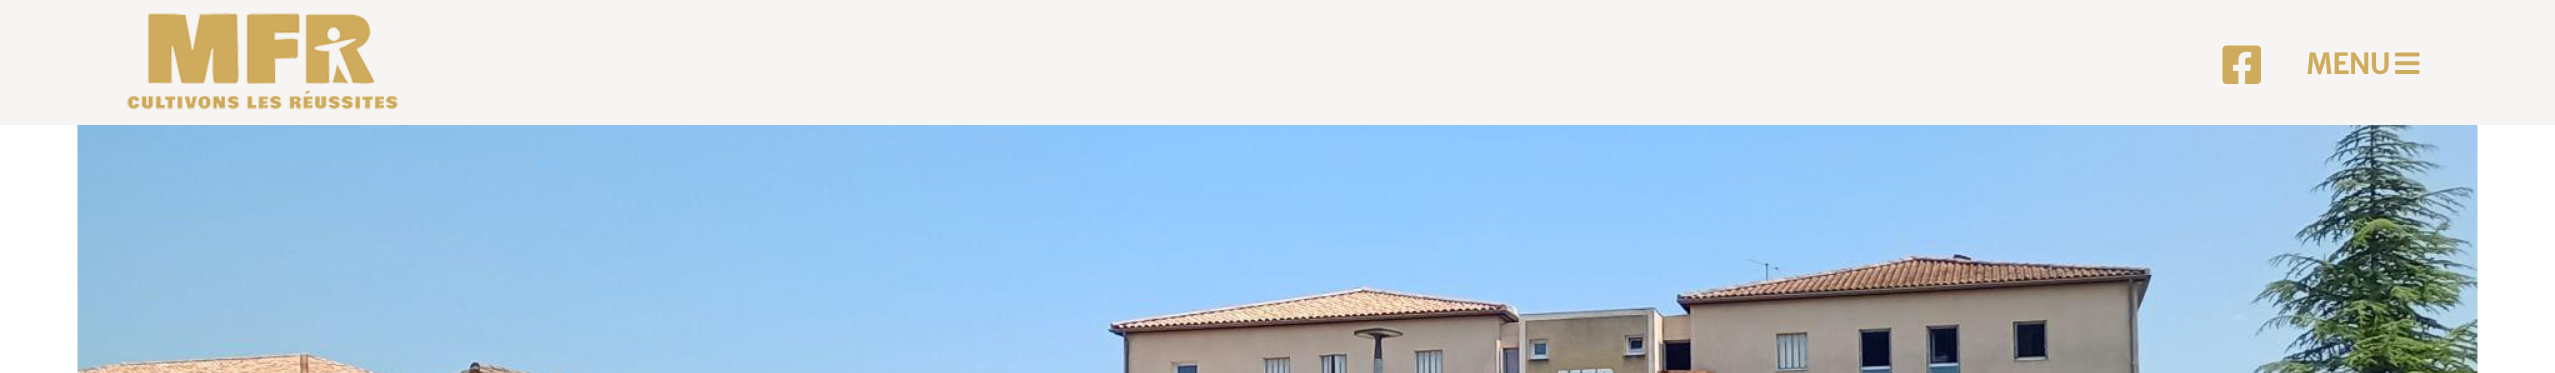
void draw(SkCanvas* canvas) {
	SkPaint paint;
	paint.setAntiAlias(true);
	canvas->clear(0xffffffff);
	paint.setColor(0xfff7f5f3);
	canvas->drawRect(SkRect::MakeXYWH(0, 0, 2555, 125), paint);
	canvas->drawImageRect(SkImages::DeferredFromEncodedData(SkData::MakeFromFileName("img1.png")), SkRect::MakeXYWH(126, 12, 273, 98), SkSamplingOptions());
	canvas->drawImageRect(SkImages::DeferredFromEncodedData(SkData::MakeFromFileName("img2.png")), SkRect::MakeXYWH(2222, 45, 39, 39), SkSamplingOptions());
	SkFont f1(fontMgr->matchFamilyStyle("Merriweather Sans", SkFontStyle::Bold()), 28);
	f1.setSubpixel(true);
	paint.setColor(0xffceab5d);
	canvas->drawString("MENU", 2306, 74, f1, paint);
	canvas->drawImageRect(SkImages::DeferredFromEncodedData(SkData::MakeFromFileName("img3.png")), SkRect::MakeXYWH(2395, 52, 25, 22), SkSamplingOptions());
	canvas->drawImageRect(SkImages::DeferredFromEncodedData(SkData::MakeFromFileName("img4.png")), SkRect::MakeXYWH(77, 125, 2401, 248), SkSamplingOptions());
}
